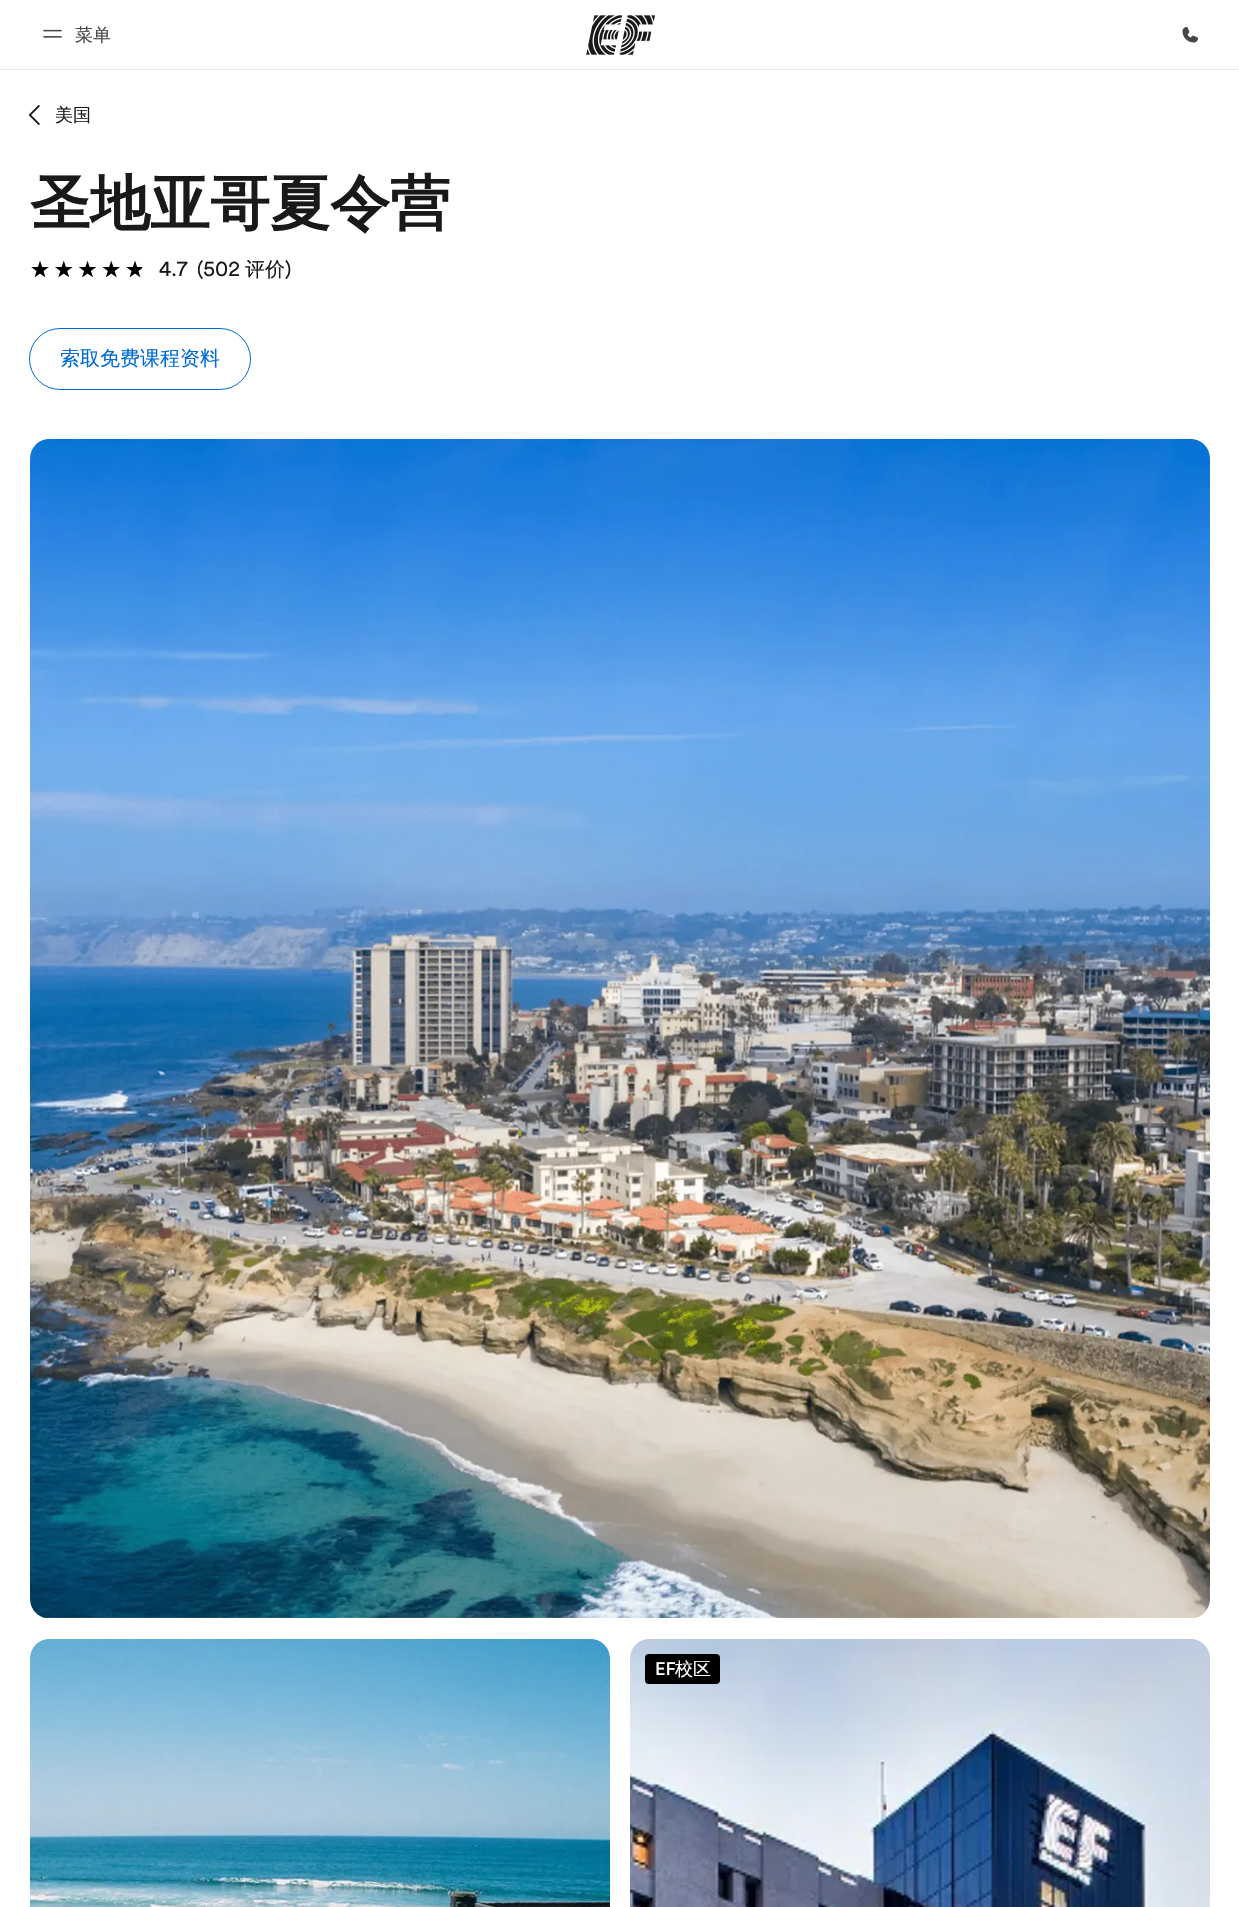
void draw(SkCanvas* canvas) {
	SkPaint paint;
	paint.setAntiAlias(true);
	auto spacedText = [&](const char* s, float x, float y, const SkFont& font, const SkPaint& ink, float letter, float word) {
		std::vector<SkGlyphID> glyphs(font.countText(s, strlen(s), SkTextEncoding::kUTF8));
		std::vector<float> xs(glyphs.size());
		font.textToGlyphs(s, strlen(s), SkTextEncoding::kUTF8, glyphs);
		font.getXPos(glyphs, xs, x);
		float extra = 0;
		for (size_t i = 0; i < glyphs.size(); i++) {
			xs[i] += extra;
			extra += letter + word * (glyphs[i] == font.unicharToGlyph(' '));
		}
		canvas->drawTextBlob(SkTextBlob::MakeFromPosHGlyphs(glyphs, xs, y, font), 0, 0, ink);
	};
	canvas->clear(0xffffffff);
	paint.setColor(0xffe8e8e8);
	canvas->drawRect(SkRect::MakeXYWH(0, 69, 1239, 1), paint);
	canvas->drawImageRect(SkImages::DeferredFromEncodedData(SkData::MakeFromFileName("img1.png")), SkRect::MakeXYWH(43, 29, 19, 9), SkSamplingOptions());
	SkFont f1(fontMgr->matchFamilyStyle("WenQuanYi Zen Hei", SkFontStyle(500, SkFontStyle::kNormal_Width, SkFontStyle::kUpright_Slant)), 18);
	f1.setSubpixel(true);
	paint.setColor(0xff474747);
	canvas->drawString("菜单", 75, 41, f1, paint);
	canvas->drawImageRect(SkImages::DeferredFromEncodedData(SkData::MakeFromFileName("img2.png")), SkRect::MakeXYWH(586, 15, 69, 40), SkSamplingOptions());
	canvas->drawImageRect(SkImages::DeferredFromEncodedData(SkData::MakeFromFileName("img3.png")), SkRect::MakeXYWH(1182, 26, 17, 17), SkSamplingOptions());
	canvas->drawImageRect(SkImages::DeferredFromEncodedData(SkData::MakeFromFileName("img4.png")), SkRect::MakeXYWH(29, 105, 11, 20), SkSamplingOptions());
	paint.setColor(0xff191919);
	canvas->drawString("美国", 55, 121, f1, paint);
	SkFont f2(fontMgr->matchFamilyStyle("WenQuanYi Zen Hei", SkFontStyle::Bold()), 60);
	f2.setSubpixel(true);
	canvas->drawString("圣地亚哥夏令营", 30, 224, f2, paint);
	SkFont f3(fontMgr->matchFamilyStyle("WenQuanYi Zen Hei", SkFontStyle(500, SkFontStyle::kNormal_Width, SkFontStyle::kUpright_Slant)), 20);
	f3.setSubpixel(true);
	{
		const SkColor colors[] = {0xff000000, 0xffc8c8c8};
		const float stops[] = {0.94, 0.94};
		const SkPoint ends[] = {{30, 269}, {149, 269}};
		paint.setShader(SkGradientShader::MakeLinear(ends, colors, stops, 2, SkTileMode::kClamp));
		paint.setAlpha(255);
	}
	spacedText("★★★★★", 30, 276, f3, paint, 3.75, 0);
	SkFont f4(fontMgr->matchFamilyStyle("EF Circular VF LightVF", SkFontStyle::Normal()), 20);
	f4.setSubpixel(true);
	paint.setShader(nullptr);
	paint.setColor(0xff191919);
	canvas->drawString("4.7", 159, 276, f4, paint);
	canvas->drawString("(502", 197, 276, f4, paint);
	canvas->drawString("评价", 245, 276, f3, paint);
	canvas->drawString(")", 285, 276, f4, paint);
	paint.setStroke(true);
	paint.setStrokeWidth(1);
	paint.setColor(0xff006bd6);
	canvas->drawRoundRect(SkRect::MakeXYWH(29.5, 328.5, 221, 61), 30.5, 30.5, paint);
	paint.setStroke(false);
	canvas->drawString("索取免费课程资料", 60, 365, f3, paint);
	canvas->drawImageRect(SkImages::DeferredFromEncodedData(SkData::MakeFromFileName("img5.png")), SkRect::MakeXYWH(30, 439, 1180, 1179), SkSamplingOptions());
	canvas->drawImageRect(SkImages::DeferredFromEncodedData(SkData::MakeFromFileName("img6.png")), SkRect::MakeXYWH(30, 1639, 580, 268), SkSamplingOptions());
	canvas->drawImageRect(SkImages::DeferredFromEncodedData(SkData::MakeFromFileName("img7.png")), SkRect::MakeXYWH(630, 1639, 580, 268), SkSamplingOptions());
	paint.setColor(0xff000000);
	canvas->drawRoundRect(SkRect::MakeXYWH(645, 1654, 75, 30), 4, 4, paint);
	SkFont f5(fontMgr->matchFamilyStyle("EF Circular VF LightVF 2", SkFontStyle::Normal()), 18);
	f5.setSubpixel(true);
	paint.setColor(0xffffffff);
	canvas->drawString("EF", 655, 1675, f5, paint);
	canvas->drawString("校区", 675, 1675, f1, paint);
}
